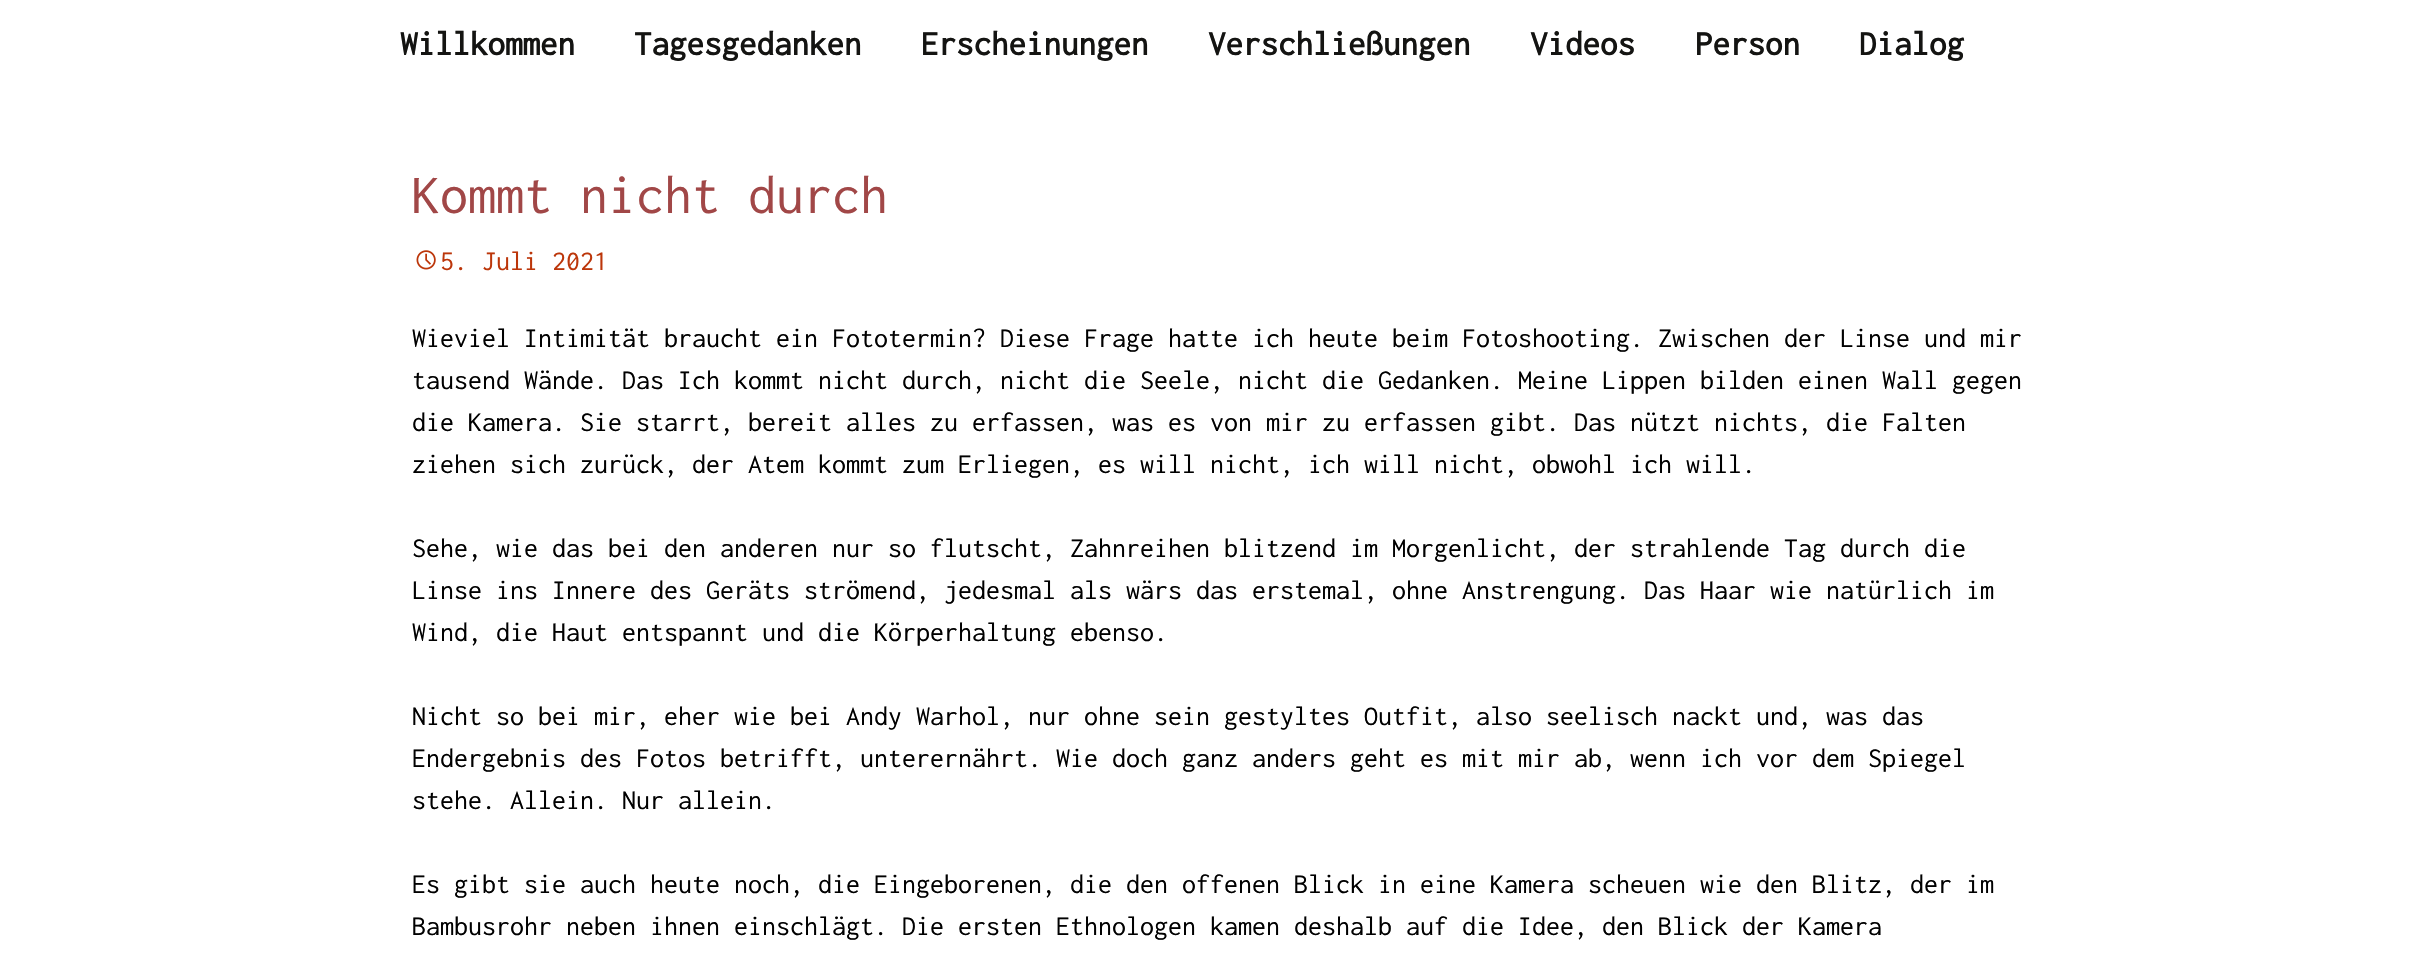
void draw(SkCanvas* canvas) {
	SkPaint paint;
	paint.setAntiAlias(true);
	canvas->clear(0xffffffff);
	SkFont f1(fontMgr->matchFamilyStyle("Inconsolata", SkFontStyle::Bold()), 35);
	f1.setSubpixel(true);
	paint.setColor(0xff141412);
	canvas->drawString("Willkommen", 400, 55, f1, paint);
	canvas->drawString("Tagesgedanken", 634, 55, f1, paint);
	canvas->drawString("Erscheinungen", 921, 55, f1, paint);
	canvas->drawString("Verschließungen", 1208, 55, f1, paint);
	canvas->drawString("Videos", 1530, 55, f1, paint);
	canvas->drawString("Person", 1695, 55, f1, paint);
	canvas->drawString("Dialog", 1859, 55, f1, paint);
	SkFont f2(fontMgr->matchFamilyStyle("Inconsolata", SkFontStyle::Normal()), 56);
	f2.setSubpixel(true);
	paint.setColor(0xffa14747);
	canvas->drawString("Kommt nicht durch", 412, 213, f2, paint);
	canvas->drawImageRect(SkImages::DeferredFromEncodedData(SkData::MakeFromFileName("img1.png")), SkRect::MakeXYWH(416, 250, 20, 20), SkSamplingOptions());
	SkFont f3(fontMgr->matchFamilyStyle("Inconsolata", SkFontStyle::Normal()), 28);
	f3.setSubpixel(true);
	paint.setColor(0xffbc360a);
	canvas->drawString("5. Juli 2021", 440, 270, f3, paint);
	paint.setColor(0xff000000);
	canvas->drawString("Wieviel Intimität braucht ein Fototermin? Diese Frage hatte ich heute beim Fotoshooting. Zwischen der Linse und mir", 412, 347, f3, paint);
	canvas->drawString("tausend Wände. Das Ich kommt nicht durch, nicht die Seele, nicht die Gedanken. Meine Lippen bilden einen Wall gegen", 412, 389, f3, paint);
	canvas->drawString("die Kamera. Sie starrt, bereit alles zu erfassen, was es von mir zu erfassen gibt. Das nützt nichts, die Falten", 412, 431, f3, paint);
	canvas->drawString("ziehen sich zurück, der Atem kommt zum Erliegen, es will nicht, ich will nicht, obwohl ich will.", 412, 473, f3, paint);
	canvas->drawString("Sehe, wie das bei den anderen nur so flutscht, Zahnreihen blitzend im Morgenlicht, der strahlende Tag durch die", 412, 557, f3, paint);
	canvas->drawString("Linse ins Innere des Geräts strömend, jedesmal als wärs das erstemal, ohne Anstrengung. Das Haar wie natürlich im", 412, 599, f3, paint);
	canvas->drawString("Wind, die Haut entspannt und die Körperhaltung ebenso.", 412, 641, f3, paint);
	canvas->drawString("Nicht so bei mir, eher wie bei Andy Warhol, nur ohne sein gestyltes Outfit, also seelisch nackt und, was das", 412, 725, f3, paint);
	canvas->drawString("Endergebnis des Fotos betrifft, unterernährt. Wie doch ganz anders geht es mit mir ab, wenn ich vor dem Spiegel", 412, 767, f3, paint);
	canvas->drawString("stehe. Allein. Nur allein.", 412, 809, f3, paint);
	canvas->drawString("Es gibt sie auch heute noch, die Eingeborenen, die den offenen Blick in eine Kamera scheuen wie den Blitz, der im", 412, 893, f3, paint);
	canvas->drawString("Bambusrohr neben ihnen einschlägt. Die ersten Ethnologen kamen deshalb auf die Idee, den Blick der Kamera", 412, 935, f3, paint);
}
